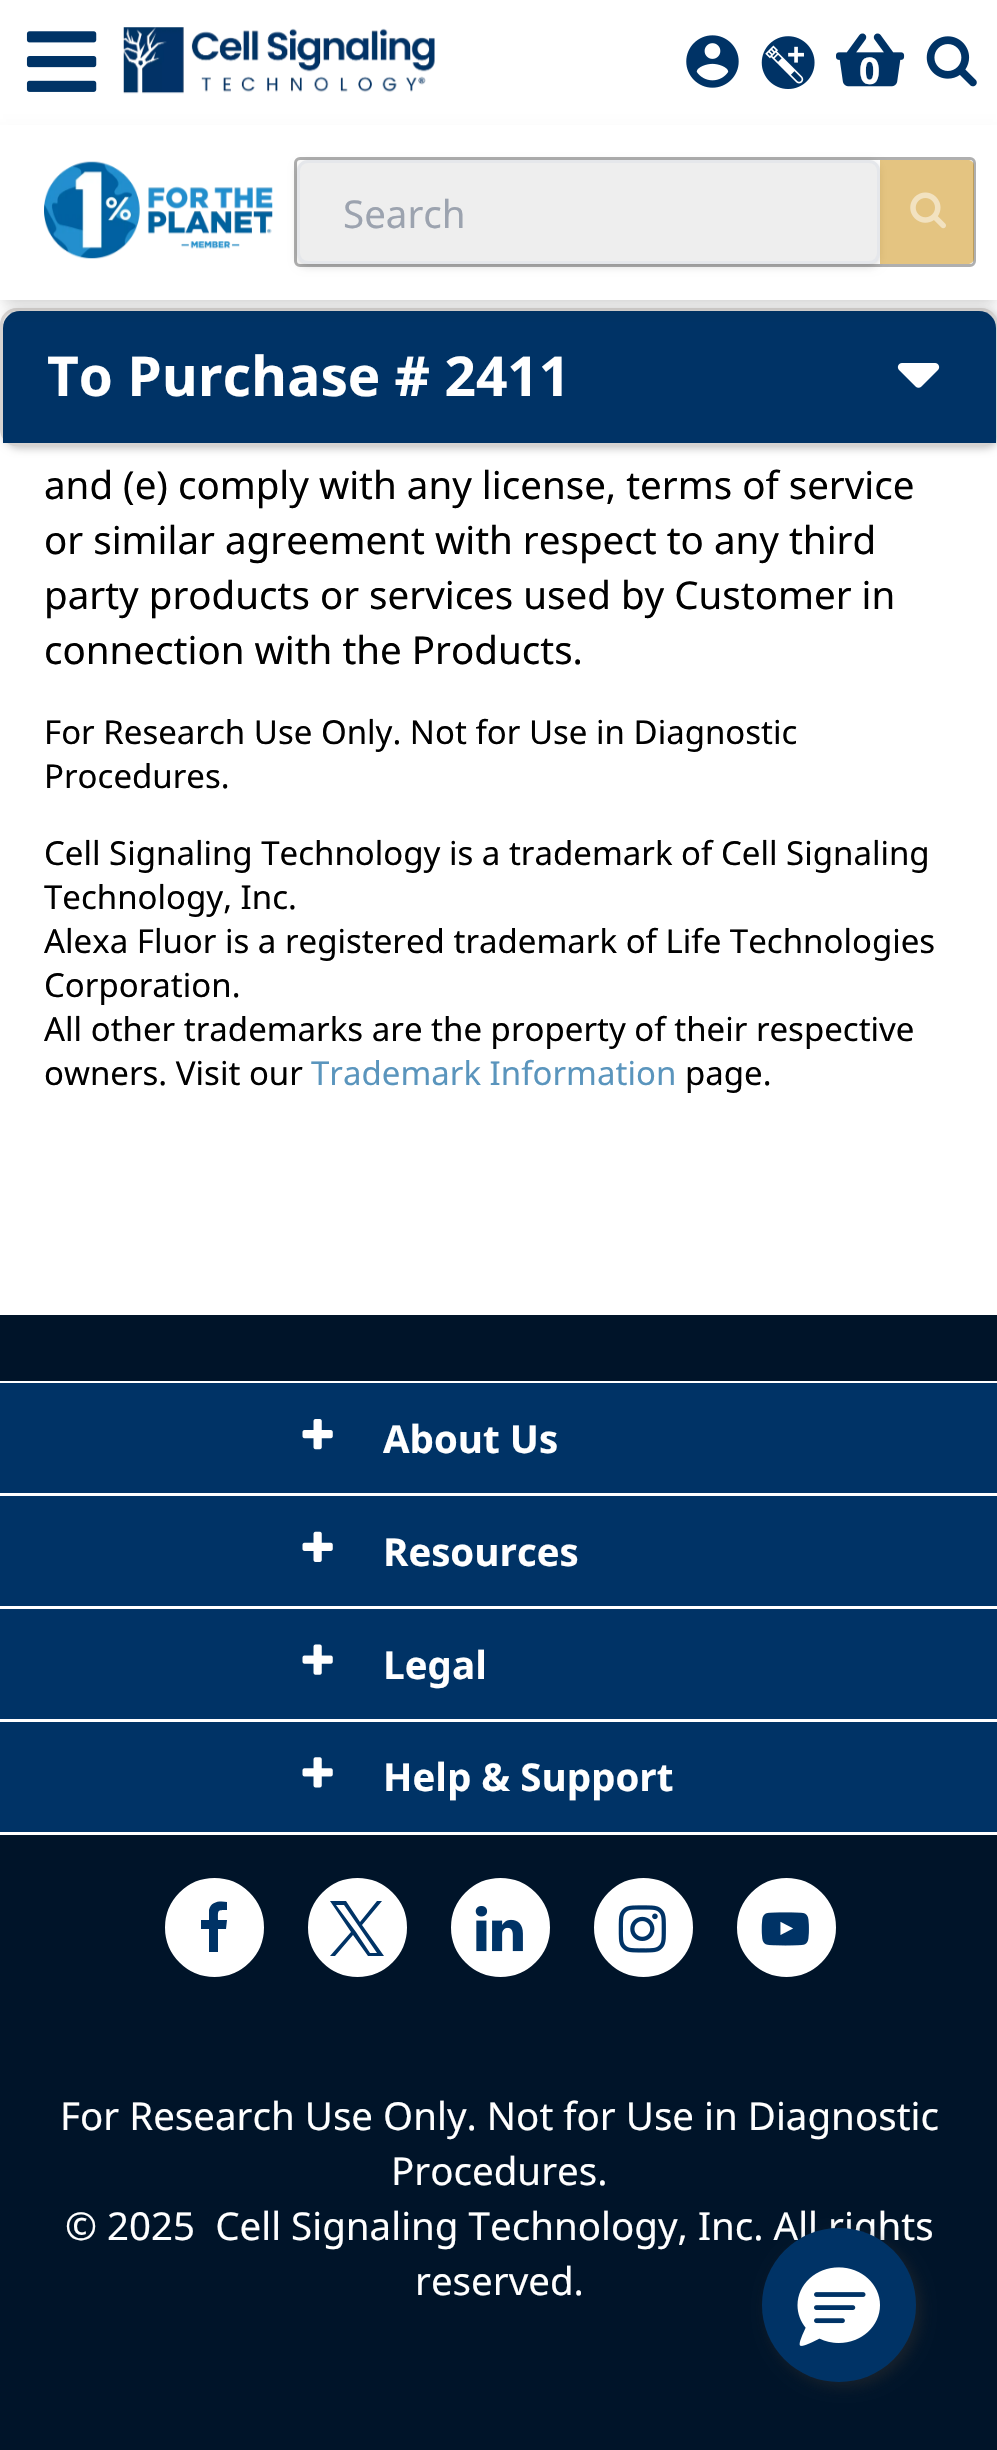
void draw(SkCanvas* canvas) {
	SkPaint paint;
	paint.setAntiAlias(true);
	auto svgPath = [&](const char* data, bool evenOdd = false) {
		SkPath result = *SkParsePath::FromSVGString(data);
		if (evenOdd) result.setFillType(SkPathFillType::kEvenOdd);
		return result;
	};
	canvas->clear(0xffffffff);
	canvas->drawImageRect(SkImages::DeferredFromEncodedData(SkData::MakeFromFileName("img1.png")), SkRect::MakeXYWH(26, 31, 71, 61), SkSamplingOptions());
	canvas->drawImageRect(SkImages::DeferredFromEncodedData(SkData::MakeFromFileName("img2.png")), SkRect::MakeXYWH(123, 27, 312, 67), SkSamplingOptions());
	canvas->drawImageRect(SkImages::DeferredFromEncodedData(SkData::MakeFromFileName("img3.png")), SkRect::MakeXYWH(686, 35, 53, 53), SkSamplingOptions());
	canvas->drawImageRect(SkImages::DeferredFromEncodedData(SkData::MakeFromFileName("img4.png")), SkRect::MakeXYWH(761, 36, 54, 53), SkSamplingOptions());
	canvas->drawImageRect(SkImages::DeferredFromEncodedData(SkData::MakeFromFileName("img5.png")), SkRect::MakeXYWH(836, 33, 69, 54), SkSamplingOptions());
	SkFont f1(fontMgr->matchFamilyStyle("Noto Sans", SkFontStyle::Bold()), 37);
	f1.setSubpixel(true);
	paint.setColor(0xffffffff);
	canvas->drawString("0", 859, 84, f1, paint);
	canvas->drawImageRect(SkImages::DeferredFromEncodedData(SkData::MakeFromFileName("img6.png")), SkRect::MakeXYWH(926, 36, 51, 51), SkSamplingOptions());
	paint.setColor(0x40000000);
	paint.setMaskFilter(SkMaskFilter::MakeBlur(kNormal_SkBlurStyle, 4));
	canvas->drawRoundRect(SkRect::MakeXYWH(3, 311, 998, 137), 17, 17, paint);
	paint.setMaskFilter(nullptr);
	paint.setStroke(true);
	paint.setStrokeWidth(3);
	paint.setColor(0xffd6d3d1);
	canvas->drawRoundRect(SkRect::MakeXYWH(1.5, 309.5, 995, 135), 15.5, 15.5, paint);
	paint.setStroke(false);
	paint.setColor(0xff003366);
	canvas->drawPath(svgPath("M20 311H979C988.5 311 996 318.5 996 328V443H3V328C3 318.5 10.5 311 20 311Z"), paint);
	paint.setColor(0x1a000000);
	paint.setMaskFilter(SkMaskFilter::MakeBlur(kNormal_SkBlurStyle, 5.5));
	canvas->drawRect(SkRect::MakeXYWH(6, 135, 987, 165), paint);
	paint.setMaskFilter(nullptr);
	paint.setMaskFilter(SkMaskFilter::MakeBlur(kNormal_SkBlurStyle, 8));
	canvas->drawRect(SkRect::MakeXYWH(3, 138, 993, 170), paint);
	paint.setMaskFilter(nullptr);
	paint.setColor(0xffffffff);
	canvas->drawRect(SkRect::MakeXYWH(0, 125, 997, 175), paint);
	canvas->drawImageRect(SkImages::DeferredFromEncodedData(SkData::MakeFromFileName("img7.png")), SkRect::MakeXYWH(44, 161, 229, 98), SkSamplingOptions());
	paint.setStroke(true);
	paint.setColor(0xffafafaf);
	canvas->drawRoundRect(SkRect::MakeXYWH(295.5, 158.5, 679, 107), 4.5, 4.5, paint);
	paint.setStroke(false);
	paint.setColor(0x1a000000);
	paint.setMaskFilter(SkMaskFilter::MakeBlur(kNormal_SkBlurStyle, 3));
	canvas->drawRoundRect(SkRect::MakeXYWH(300, 165, 577, 99), 8, 8, paint);
	paint.setMaskFilter(nullptr);
	paint.setMaskFilter(SkMaskFilter::MakeBlur(kNormal_SkBlurStyle, 4));
	canvas->drawRoundRect(SkRect::MakeXYWH(297, 162, 583, 105), 11, 11, paint);
	paint.setMaskFilter(nullptr);
	paint.setColor(0xffeeeeee);
	canvas->drawRoundRect(SkRect::MakeXYWH(298.5, 161.5, 580, 101), 9.5, 9.5, paint);
	paint.setStroke(true);
	paint.setColor(0xffe5e7eb);
	canvas->drawRoundRect(SkRect::MakeXYWH(298.5, 161.5, 580, 101), 9.5, 9.5, paint);
	SkFont f2(fontMgr->matchFamilyStyle("Noto Sans", SkFontStyle::Normal()), 38.5);
	f2.setSubpixel(true);
	paint.setStroke(false);
	paint.setColor(0xff9ca3af);
	canvas->drawString("Search", 343, 228, f2, paint);
	paint.setColor(0x80ca8a04);
	canvas->drawPath(svgPath("M880 160H968C971.5 160 974 162.5 974 166V258C974 261.5 971.5 264 968 264H880Z"), paint);
	canvas->drawImageRect(SkImages::DeferredFromEncodedData(SkData::MakeFromFileName("img8.png")), SkRect::MakeXYWH(910, 192, 36, 37), SkSamplingOptions());
	SkFont f3(fontMgr->matchFamilyStyle("Noto Sans", SkFontStyle::Bold()), 55);
	f3.setSubpixel(true);
	paint.setColor(0xffffffff);
	canvas->drawString("To Purchase # 2411", 47, 396, f3, paint);
	canvas->drawImageRect(SkImages::DeferredFromEncodedData(SkData::MakeFromFileName("img9.png")), SkRect::MakeXYWH(897, 363, 43, 25), SkSamplingOptions());
	paint.setColor(0xff000000);
	canvas->drawString("and (e) comply with any license, terms of service", 44, 499, f2, paint);
	canvas->drawString("or similar agreement with respect to any third", 44, 554, f2, paint);
	canvas->drawString("party products or services used by Customer in", 44, 609, f2, paint);
	canvas->drawString("connection with the Products.", 44, 664, f2, paint);
	SkFont f4(fontMgr->matchFamilyStyle("Noto Sans", SkFontStyle::Normal()), 33);
	f4.setSubpixel(true);
	canvas->drawString("For Research Use Only. Not for Use in Diagnostic", 44, 744, f4, paint);
	canvas->drawString("Procedures.", 44, 788, f4, paint);
	canvas->drawString("Cell Signaling Technology is a trademark of Cell Signaling", 44, 865, f4, paint);
	canvas->drawString("Technology, Inc.", 44, 909, f4, paint);
	canvas->drawString("Alexa Fluor is a registered trademark of Life Technologies", 44, 953, f4, paint);
	canvas->drawString("Corporation.", 44, 997, f4, paint);
	canvas->drawString("All other trademarks are the property of their respective", 44, 1041, f4, paint);
	canvas->drawString("owners. Visit our", 44, 1085, f4, paint);
	paint.setColor(0xff5a95bd);
	canvas->drawString("Trademark Information", 311, 1085, f4, paint);
	paint.setColor(0xff000000);
	canvas->drawString("page.", 685, 1085, f4, paint);
	paint.setColor(0xff001429);
	canvas->drawRect(SkRect::MakeXYWH(0, 1315, 997, 1135), paint);
	paint.setColor(0xffffffff);
	canvas->drawRect(SkRect::MakeXYWH(0, 1381, 997, 2), paint);
	canvas->drawRect(SkRect::MakeXYWH(0, 1493, 997, 3), paint);
	paint.setColor(0xff003366);
	canvas->drawRect(SkRect::MakeXYWH(0, 1383, 997, 110), paint);
	canvas->drawImageRect(SkImages::DeferredFromEncodedData(SkData::MakeFromFileName("img10.png")), SkRect::MakeXYWH(302, 1419, 31, 31), SkSamplingOptions());
	SkFont f5(fontMgr->matchFamilyStyle("Noto Sans", SkFontStyle::Bold()), 38.5);
	f5.setSubpixel(true);
	paint.setColor(0xffffffff);
	canvas->drawString("About Us", 383, 1453, f5, paint);
	canvas->drawRect(SkRect::MakeXYWH(0, 1606, 997, 3), paint);
	paint.setColor(0xff003366);
	canvas->drawRect(SkRect::MakeXYWH(0, 1496, 997, 110), paint);
	canvas->drawImageRect(SkImages::DeferredFromEncodedData(SkData::MakeFromFileName("img11.png")), SkRect::MakeXYWH(302, 1531, 31, 31), SkSamplingOptions());
	paint.setColor(0xffffffff);
	canvas->drawString("Resources", 383, 1566, f5, paint);
	canvas->drawRect(SkRect::MakeXYWH(0, 1719, 997, 3), paint);
	paint.setColor(0xff003366);
	canvas->drawRect(SkRect::MakeXYWH(0, 1609, 997, 110), paint);
	canvas->drawImageRect(SkImages::DeferredFromEncodedData(SkData::MakeFromFileName("img12.png")), SkRect::MakeXYWH(302, 1644, 31, 31), SkSamplingOptions());
	paint.setColor(0xffffffff);
	canvas->drawString("Legal", 383, 1679, f5, paint);
	canvas->drawRect(SkRect::MakeXYWH(0, 1832, 997, 3), paint);
	paint.setColor(0xff003366);
	canvas->drawRect(SkRect::MakeXYWH(0, 1722, 997, 110), paint);
	canvas->drawImageRect(SkImages::DeferredFromEncodedData(SkData::MakeFromFileName("img13.png")), SkRect::MakeXYWH(302, 1757, 31, 31), SkSamplingOptions());
	paint.setColor(0xffffffff);
	canvas->drawString("Help & Support", 383, 1791, f5, paint);
	canvas->drawCircle(214.5, 1927.5, 48, paint);
	paint.setStroke(true);
	canvas->drawCircle(214.5, 1927.5, 48, paint);
	paint.setStroke(false);
	paint.setColor(0xff003366);
	canvas->drawPath(svgPath("M227 1902V1910C217 1910 218 1910 218 1920H227L226 1929H218V1952H209V1929H201V1920H209V1910C211 1901 220 1901 227 1902Z"), paint);
	paint.setColor(0xffffffff);
	canvas->drawCircle(357.5, 1927.5, 48, paint);
	paint.setStroke(true);
	canvas->drawCircle(357.5, 1927.5, 48, paint);
	paint.setStroke(false);
	paint.setColor(0xff003366);
	canvas->drawPath(svgPath("M362 1925L382 1901H377L360 1922L346 1901H330L351 1932L330 1956H335L353 1935L368 1956H384ZM356 1932L336 1905H344L377 1953H370Z"), paint);
	paint.setColor(0xffffffff);
	canvas->drawCircle(500.5, 1927.5, 48, paint);
	paint.setStroke(true);
	canvas->drawCircle(500.5, 1927.5, 48, paint);
	canvas->drawImageRect(SkImages::DeferredFromEncodedData(SkData::MakeFromFileName("img14.png")), SkRect::MakeXYWH(475, 1906, 48, 46), SkSamplingOptions());
	paint.setStroke(false);
	canvas->drawCircle(643.5, 1927.5, 48, paint);
	paint.setStroke(true);
	canvas->drawCircle(643.5, 1927.5, 48, paint);
	canvas->drawImageRect(SkImages::DeferredFromEncodedData(SkData::MakeFromFileName("img15.png")), SkRect::MakeXYWH(618, 1905, 48, 48), SkSamplingOptions());
	paint.setStroke(false);
	canvas->drawCircle(786.5, 1927.5, 48, paint);
	paint.setStroke(true);
	canvas->drawCircle(786.5, 1927.5, 48, paint);
	canvas->drawImageRect(SkImages::DeferredFromEncodedData(SkData::MakeFromFileName("img16.png")), SkRect::MakeXYWH(761, 1912, 48, 34), SkSamplingOptions());
	paint.setStroke(false);
	canvas->drawString("For Research Use Only. Not for Use in Diagnostic", 60, 2130, f2, paint);
	canvas->drawString("Procedures.", 391, 2185, f2, paint);
	canvas->drawString("© 2025  Cell Signaling Technology, Inc. All rights", 65, 2240, f2, paint);
	canvas->drawString("reserved.", 415, 2295, f2, paint);
	paint.setColor(0x802d2d2d);
	paint.setMaskFilter(SkMaskFilter::MakeBlur(kNormal_SkBlurStyle, 7));
	canvas->drawRoundRect(SkRect::MakeXYWH(767, 2233, 154, 154), 77, 77, paint);
	paint.setMaskFilter(nullptr);
	paint.setColor(0xff003366);
	canvas->drawCircle(839, 2305, 77, paint);
	canvas->drawImageRect(SkImages::DeferredFromEncodedData(SkData::MakeFromFileName("img17.png")), SkRect::MakeXYWH(797, 2267, 83, 79), SkSamplingOptions());
}
